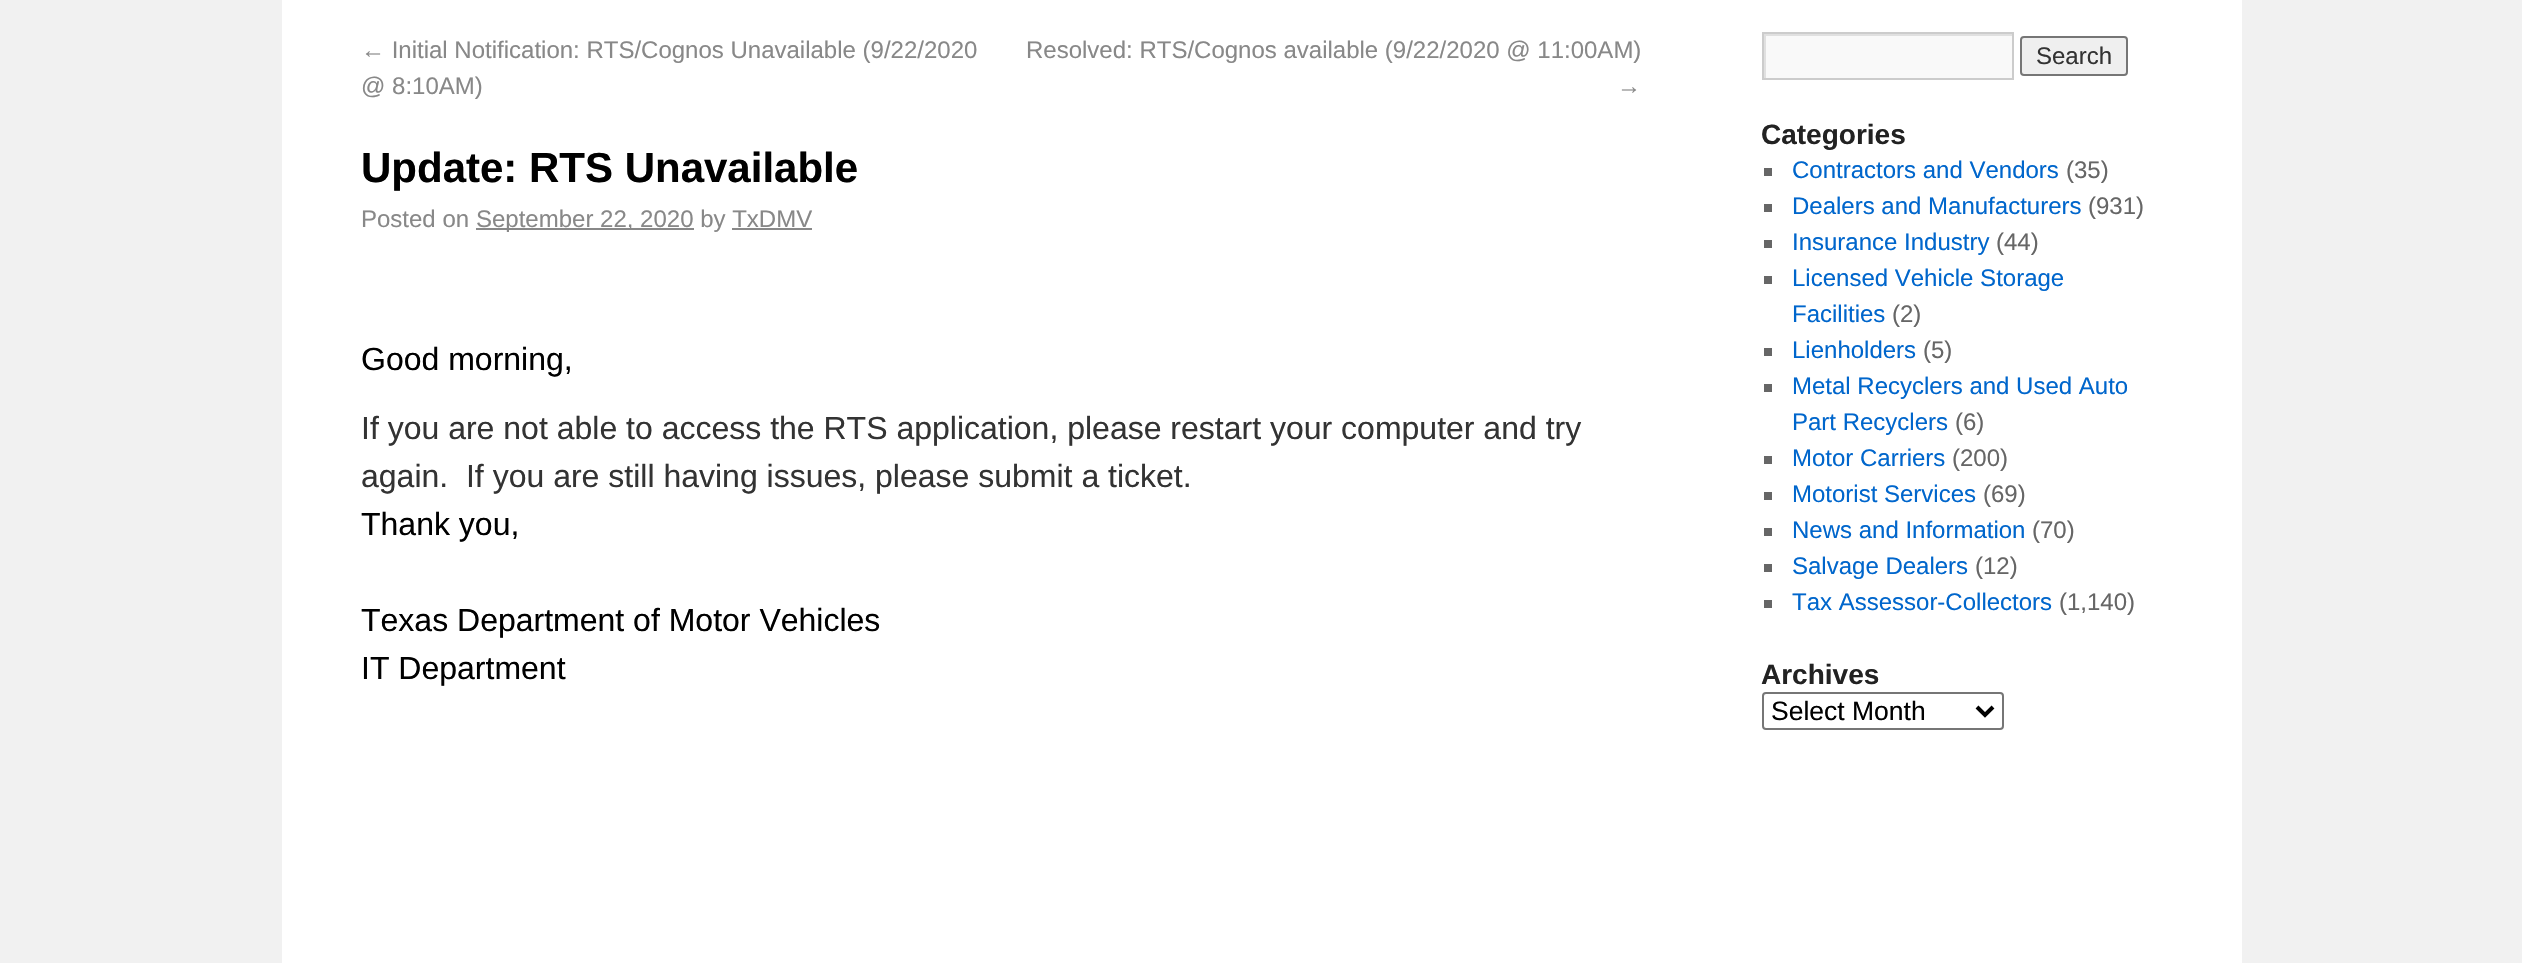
void draw(SkCanvas* canvas) {
	SkPaint paint;
	paint.setAntiAlias(true);
	auto svgPath = [&](const char* data, bool evenOdd = false) {
		SkPath result = *SkParsePath::FromSVGString(data);
		if (evenOdd) result.setFillType(SkPathFillType::kEvenOdd);
		return result;
	};
	canvas->clear(0xfff1f1f1);
	paint.setColor(0xffffffff);
	canvas->drawRect(SkRect::MakeXYWH(282, 0, 1960, 963), paint);
	SkFont f1(fontMgr->matchFamilyStyle("Liberation Sans", SkFontStyle::Normal()), 24);
	f1.setSubpixel(true);
	paint.setColor(0xff888888);
	canvas->drawString("← Initial Notification: RTS/Cognos Unavailable (9/22/2020", 361, 58, f1, paint);
	canvas->drawString("@ 8:10AM)", 361, 94, f1, paint);
	canvas->drawString("Resolved: RTS/Cognos available (9/22/2020 @ 11:00AM)", 1026, 58, f1, paint);
	canvas->drawString("→", 1617, 94, f1, paint);
	SkFont f2(fontMgr->matchFamilyStyle("Liberation Sans", SkFontStyle::Bold()), 42);
	f2.setSubpixel(true);
	paint.setColor(0xff000000);
	canvas->drawString("Update: RTS Unavailable", 361, 182, f2, paint);
	paint.setColor(0xff888888);
	canvas->drawString("Posted on", 361, 227, f1, paint);
	canvas->drawRect(SkRect::MakeXYWH(476, 228, 218, 2), paint);
	canvas->drawString("September 22, 2020 by TxDMV", 476, 227, f1, paint);
	canvas->drawRect(SkRect::MakeXYWH(732, 228, 80, 2), paint);
	SkFont f3(fontMgr->matchFamilyStyle("Liberation Sans", SkFontStyle::Normal()), 32);
	f3.setSubpixel(true);
	paint.setColor(0xff000000);
	canvas->drawString("Good morning,", 361, 370, f3, paint);
	paint.setColor(0xff333333);
	canvas->drawString("If you are not able to access the RTS application, please restart your computer and try", 361, 439, f3, paint);
	canvas->drawString("again.  If you are still having issues, please submit a ticket.", 361, 487, f3, paint);
	paint.setColor(0xff000000);
	canvas->drawString("Thank you,", 361, 535, f3, paint);
	canvas->drawString("Texas Department of Motor Vehicles", 361, 631, f3, paint);
	canvas->drawString("IT Department", 361, 679, f3, paint);
	paint.setColor(0xfff9f9f9);
	canvas->drawRect(SkRect::MakeXYWH(1766, 36, 246, 42), paint);
	canvas->save();
	canvas->clipRect(SkRect::MakeXYWH(1764, 34, 248, 44));
	paint.setColor(0xffe0e0e0);
	canvas->drawPath(svgPath("M1566-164H2210V276H1566ZM1766 36H2014V80H1766Z", true), paint);
	canvas->restore();
	paint.setStroke(true);
	paint.setStrokeWidth(2);
	paint.setColor(0xffcccccc);
	canvas->drawRect(SkRect::MakeXYWH(1763, 33, 250, 46), paint);
	paint.setStroke(false);
	paint.setColor(0xffefefef);
	canvas->drawRoundRect(SkRect::MakeXYWH(2021, 37, 106, 38), 3, 3, paint);
	paint.setStroke(true);
	paint.setColor(0xff767676);
	canvas->drawRoundRect(SkRect::MakeXYWH(2021, 37, 106, 38), 3, 3, paint);
	paint.setStroke(false);
	paint.setColor(0xff333333);
	canvas->drawString("Search", 2036, 64, f1, paint);
	SkFont f4(fontMgr->matchFamilyStyle("Liberation Sans", SkFontStyle::Bold()), 28);
	f4.setSubpixel(true);
	paint.setColor(0xff222222);
	canvas->drawString("Categories", 1761, 144, f4, paint);
	paint.setColor(0xff666666);
	canvas->drawRect(SkRect::MakeXYWH(1764, 168, 8, 8), paint);
	paint.setColor(0xff0066cc);
	canvas->drawString("Contractors and Vendors", 1792, 178, f1, paint);
	paint.setColor(0xff666666);
	canvas->drawString("(35)", 2066, 178, f1, paint);
	canvas->drawRect(SkRect::MakeXYWH(1764, 204, 8, 8), paint);
	paint.setColor(0xff0066cc);
	canvas->drawString("Dealers and Manufacturers", 1792, 214, f1, paint);
	paint.setColor(0xff666666);
	canvas->drawString("(931)", 2088, 214, f1, paint);
	canvas->drawRect(SkRect::MakeXYWH(1764, 240, 8, 8), paint);
	paint.setColor(0xff0066cc);
	canvas->drawString("Insurance Industry", 1792, 250, f1, paint);
	paint.setColor(0xff666666);
	canvas->drawString("(44)", 1996, 250, f1, paint);
	canvas->drawRect(SkRect::MakeXYWH(1764, 276, 8, 8), paint);
	paint.setColor(0xff0066cc);
	canvas->drawString("Licensed Vehicle Storage", 1792, 286, f1, paint);
	canvas->drawString("Facilities", 1792, 322, f1, paint);
	paint.setColor(0xff666666);
	canvas->drawString("(2)", 1892, 322, f1, paint);
	canvas->drawRect(SkRect::MakeXYWH(1764, 348, 8, 8), paint);
	paint.setColor(0xff0066cc);
	canvas->drawString("Lienholders", 1792, 358, f1, paint);
	paint.setColor(0xff666666);
	canvas->drawString("(5)", 1923, 358, f1, paint);
	canvas->drawRect(SkRect::MakeXYWH(1764, 384, 8, 8), paint);
	paint.setColor(0xff0066cc);
	canvas->drawString("Metal Recyclers and Used Auto", 1792, 394, f1, paint);
	canvas->drawString("Part Recyclers", 1792, 430, f1, paint);
	paint.setColor(0xff666666);
	canvas->drawString("(6)", 1955, 430, f1, paint);
	canvas->drawRect(SkRect::MakeXYWH(1764, 456, 8, 8), paint);
	paint.setColor(0xff0066cc);
	canvas->drawString("Motor Carriers", 1792, 466, f1, paint);
	paint.setColor(0xff666666);
	canvas->drawString("(200)", 1952, 466, f1, paint);
	canvas->drawRect(SkRect::MakeXYWH(1764, 492, 8, 8), paint);
	paint.setColor(0xff0066cc);
	canvas->drawString("Motorist Services", 1792, 502, f1, paint);
	paint.setColor(0xff666666);
	canvas->drawString("(69)", 1983, 502, f1, paint);
	canvas->drawRect(SkRect::MakeXYWH(1764, 528, 8, 8), paint);
	paint.setColor(0xff0066cc);
	canvas->drawString("News and Information", 1792, 538, f1, paint);
	paint.setColor(0xff666666);
	canvas->drawString("(70)", 2032, 538, f1, paint);
	canvas->drawRect(SkRect::MakeXYWH(1764, 564, 8, 8), paint);
	paint.setColor(0xff0066cc);
	canvas->drawString("Salvage Dealers", 1792, 574, f1, paint);
	paint.setColor(0xff666666);
	canvas->drawString("(12)", 1975, 574, f1, paint);
	canvas->drawRect(SkRect::MakeXYWH(1764, 600, 8, 8), paint);
	paint.setColor(0xff0066cc);
	canvas->drawString("Tax Assessor-Collectors", 1792, 610, f1, paint);
	paint.setColor(0xff666666);
	canvas->drawString("(1,140)", 2059, 610, f1, paint);
	paint.setColor(0xff222222);
	canvas->drawString("Archives", 1761, 684, f4, paint);
	paint.setStroke(true);
	paint.setColor(0xff767676);
	canvas->drawRoundRect(SkRect::MakeXYWH(1763, 693, 240, 36), 3, 3, paint);
	paint.setStrokeWidth(4);
	paint.setColor(0xff000000);
	canvas->drawPath(svgPath("M1977 707L1985 715L1993 707"), paint);
	SkFont f5(fontMgr->matchFamilyStyle("Liberation Sans", SkFontStyle::Normal()), 26.5);
	f5.setSubpixel(true);
	paint.setStroke(false);
	canvas->drawString("Select Month", 1771, 720, f5, paint);
}
